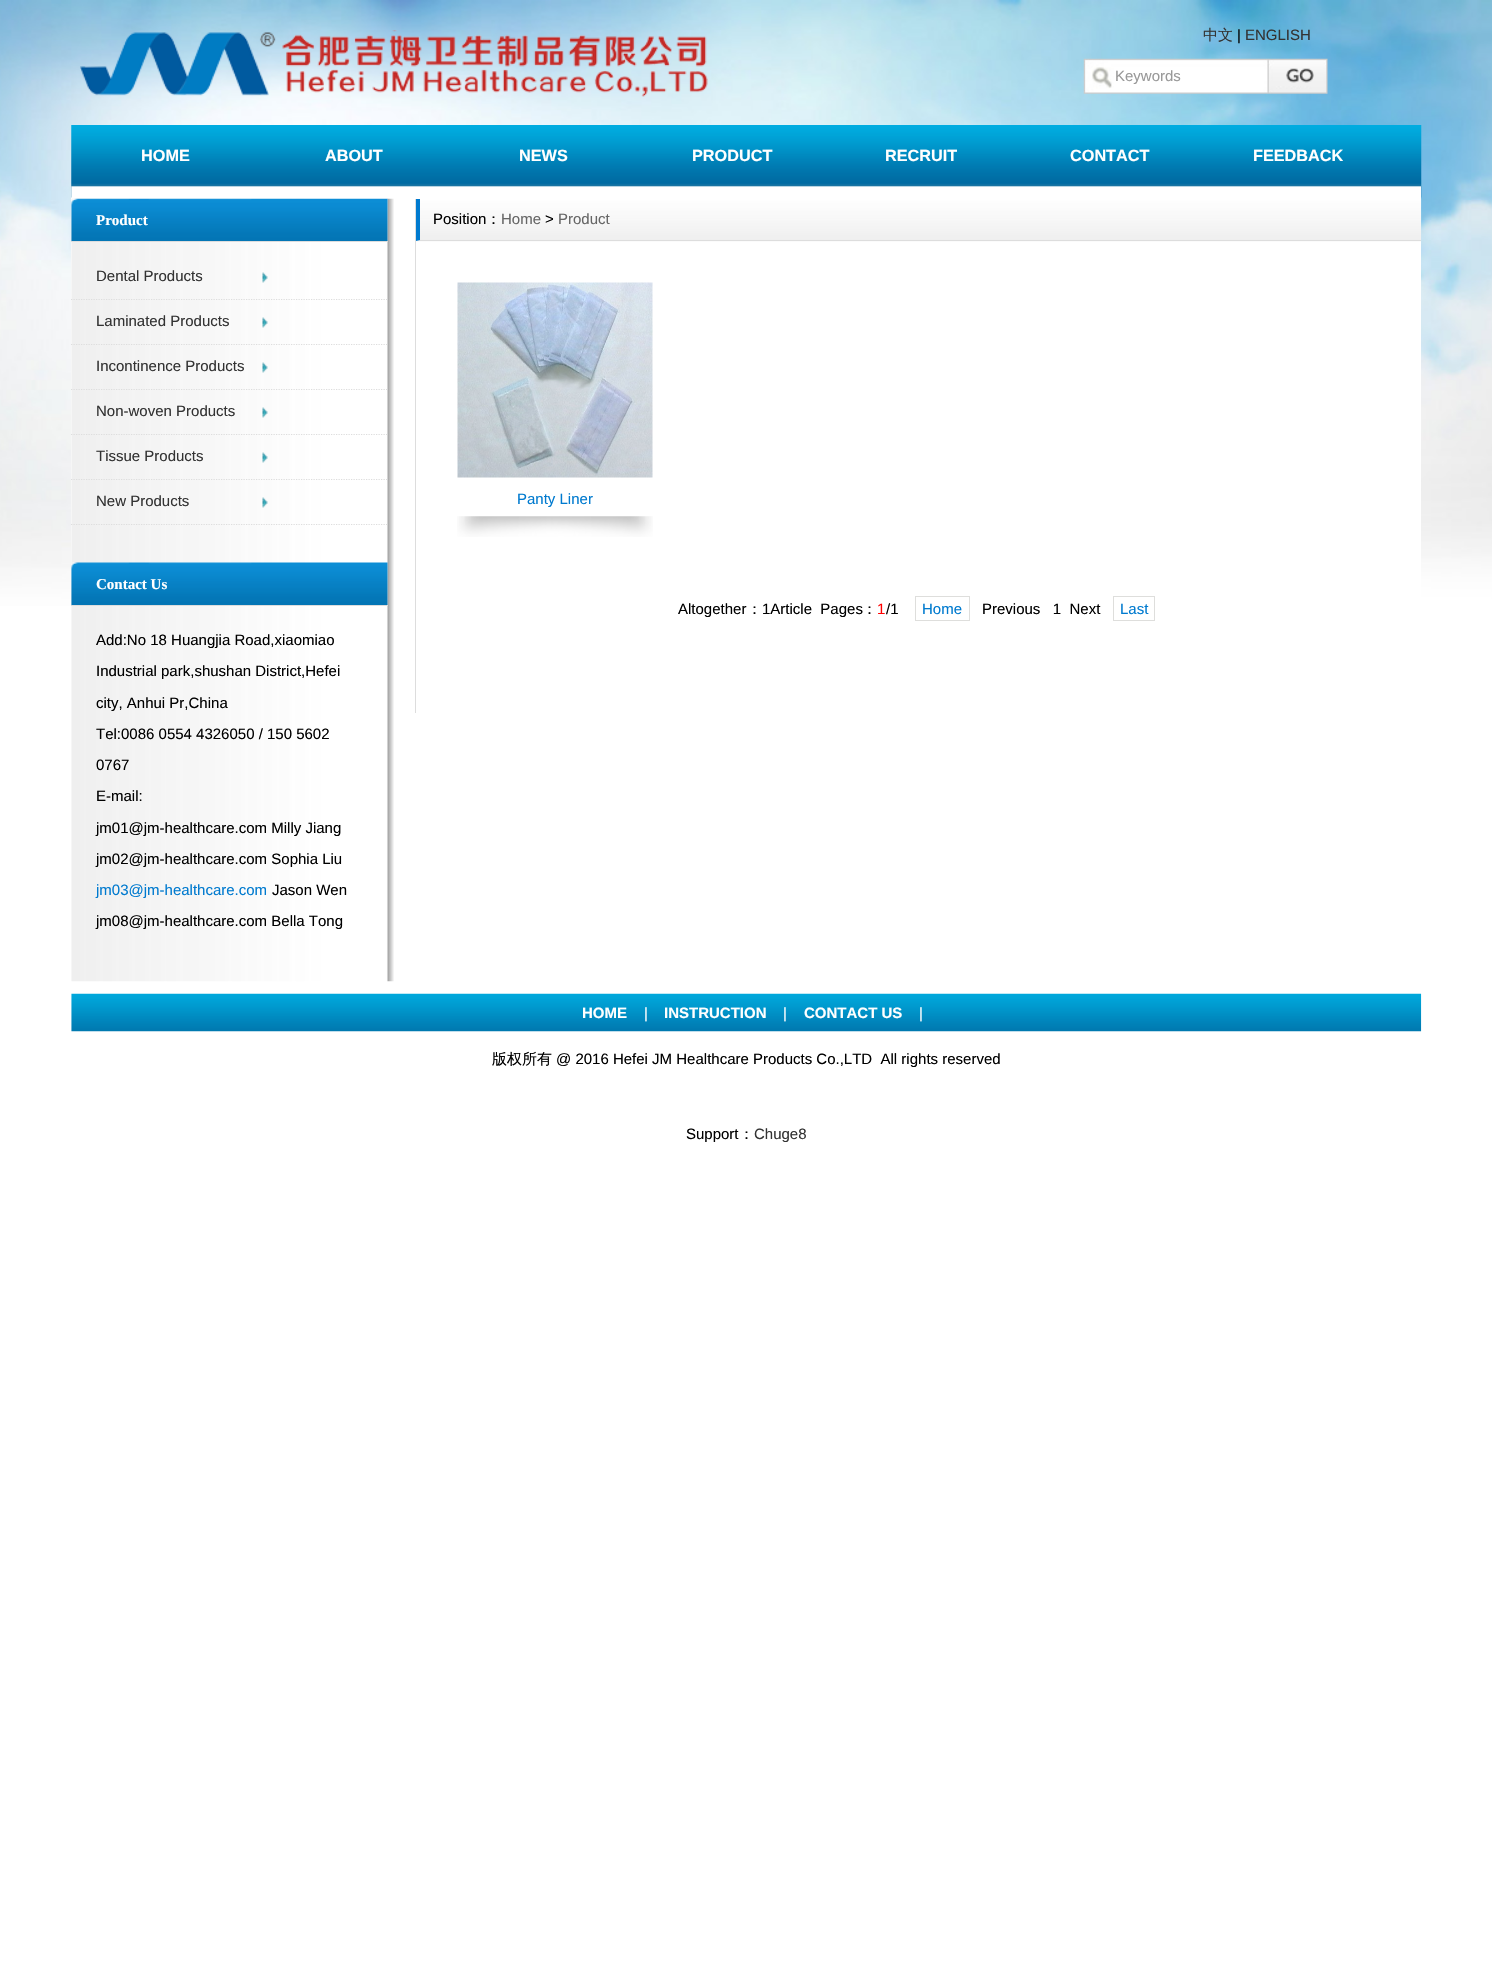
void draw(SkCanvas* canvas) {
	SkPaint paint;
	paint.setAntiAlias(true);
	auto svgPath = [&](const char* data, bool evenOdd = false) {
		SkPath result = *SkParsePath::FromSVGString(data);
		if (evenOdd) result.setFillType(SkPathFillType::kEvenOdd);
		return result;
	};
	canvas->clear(0xffffffff);
	canvas->drawImageRect(SkImages::DeferredFromEncodedData(SkData::MakeFromFileName("img1.png")), SkRect::MakeXYWH(0, 0, 1492, 606), SkSamplingOptions());
	canvas->drawImageRect(SkImages::DeferredFromEncodedData(SkData::MakeFromFileName("img2.png")), SkRect::MakeXYWH(80, 30, 628, 67), SkSamplingOptions());
	SkFont f1(fontMgr->matchFamilyStyle("WenQuanYi Zen Hei", SkFontStyle(500, SkFontStyle::kNormal_Width, SkFontStyle::kUpright_Slant)), 15);
	f1.setSubpixel(true);
	paint.setColor(0xff333333);
	canvas->drawString("中文", 1203, 40, f1, paint);
	SkFont f2(fontMgr->matchFamilyStyle("Liberation Sans", SkFontStyle::Normal()), 15);
	f2.setSubpixel(true);
	paint.setColor(0xff000000);
	canvas->drawString("|", 1237, 40, f2, paint);
	paint.setColor(0xff333333);
	canvas->drawString("ENGLISH", 1245, 40, f2, paint);
	canvas->drawImageRect(SkImages::DeferredFromEncodedData(SkData::MakeFromFileName("img3.png")), SkRect::MakeXYWH(1083, 58, 245, 36), SkSamplingOptions());
	paint.setColor(0xff999999);
	canvas->drawString("Keywords", 1115, 81, f2, paint);
	paint.setColor(0xffffffff);
	canvas->drawRect(SkRect::MakeXYWH(71, 186, 1350, 420), paint);
	canvas->drawImageRect(SkImages::DeferredFromEncodedData(SkData::MakeFromFileName("img4.png")), SkRect::MakeXYWH(71, 125, 1351, 73), SkSamplingOptions());
	SkFont f3(fontMgr->matchFamilyStyle("Liberation Sans", SkFontStyle::Bold()), 16.25);
	f3.setSubpixel(true);
	canvas->drawString("HOME", 141, 161, f3, paint);
	canvas->drawString("ABOUT", 325, 161, f3, paint);
	canvas->drawString("NEWS", 519, 161, f3, paint);
	canvas->drawString("PRODUCT", 692, 161, f3, paint);
	canvas->drawString("RECRUIT", 885, 161, f3, paint);
	canvas->drawString("CONTACT", 1070, 161, f3, paint);
	canvas->drawString("FEEDBACK", 1253, 161, f3, paint);
	canvas->drawImageRect(SkImages::DeferredFromEncodedData(SkData::MakeFromFileName("img5.png")), SkRect::MakeXYWH(71, 198, 323, 784), SkSamplingOptions());
	canvas->drawImageRect(SkImages::DeferredFromEncodedData(SkData::MakeFromFileName("img6.png")), SkRect::MakeXYWH(71, 198, 317, 43), SkSamplingOptions());
	paint.setColor(0xffdddddd);
	canvas->drawRect(SkRect::MakeXYWH(71, 241, 317, 1), paint);
	SkFont f4(fontMgr->matchFamilyStyle("Liberation Serif", SkFontStyle::Bold()), 15);
	f4.setSubpixel(true);
	paint.setColor(0xffffffff);
	canvas->drawString("Product", 96, 225, f4, paint);
	canvas->drawImageRect(SkImages::DeferredFromEncodedData(SkData::MakeFromFileName("img7.png")), SkRect::MakeXYWH(262, 272, 6, 11), SkSamplingOptions());
	paint.setStroke(true);
	paint.setStrokeWidth(1.2);
	paint.setColor(0xffdddddd);
	paint.setPathEffect(SkDashPathEffect::Make({{1.25f, 1.25f}}, 0));
	canvas->drawPath(svgPath("M71 299.5H387.5"), paint);
	paint.setPathEffect(nullptr);
	paint.setStroke(false);
	paint.setColor(0xff333333);
	canvas->drawString("Dental Products", 96, 281, f2, paint);
	canvas->drawImageRect(SkImages::DeferredFromEncodedData(SkData::MakeFromFileName("img7.png")), SkRect::MakeXYWH(262, 317, 6, 11), SkSamplingOptions());
	paint.setStroke(true);
	paint.setColor(0xffdddddd);
	paint.setPathEffect(SkDashPathEffect::Make({{1.25f, 1.25f}}, 0));
	canvas->drawPath(svgPath("M71 344.5H387.5"), paint);
	paint.setPathEffect(nullptr);
	paint.setStroke(false);
	paint.setColor(0xff333333);
	canvas->drawString("Laminated Products", 96, 326, f2, paint);
	canvas->drawImageRect(SkImages::DeferredFromEncodedData(SkData::MakeFromFileName("img7.png")), SkRect::MakeXYWH(262, 362, 6, 11), SkSamplingOptions());
	paint.setStroke(true);
	paint.setColor(0xffdddddd);
	paint.setPathEffect(SkDashPathEffect::Make({{1.25f, 1.25f}}, 0));
	canvas->drawPath(svgPath("M71 389.5H387.5"), paint);
	paint.setPathEffect(nullptr);
	paint.setStroke(false);
	paint.setColor(0xff333333);
	canvas->drawString("Incontinence Products", 96, 371, f2, paint);
	canvas->drawImageRect(SkImages::DeferredFromEncodedData(SkData::MakeFromFileName("img7.png")), SkRect::MakeXYWH(262, 407, 6, 11), SkSamplingOptions());
	paint.setStroke(true);
	paint.setColor(0xffdddddd);
	paint.setPathEffect(SkDashPathEffect::Make({{1.25f, 1.25f}}, 0));
	canvas->drawPath(svgPath("M71 434.5H387.5"), paint);
	paint.setPathEffect(nullptr);
	paint.setStroke(false);
	paint.setColor(0xff333333);
	canvas->drawString("Non-woven Products", 96, 416, f2, paint);
	canvas->drawImageRect(SkImages::DeferredFromEncodedData(SkData::MakeFromFileName("img7.png")), SkRect::MakeXYWH(262, 452, 6, 11), SkSamplingOptions());
	paint.setStroke(true);
	paint.setColor(0xffdddddd);
	paint.setPathEffect(SkDashPathEffect::Make({{1.25f, 1.25f}}, 0));
	canvas->drawPath(svgPath("M71 479.5H387.5"), paint);
	paint.setPathEffect(nullptr);
	paint.setStroke(false);
	paint.setColor(0xff333333);
	canvas->drawString("Tissue Products", 96, 461, f2, paint);
	canvas->drawImageRect(SkImages::DeferredFromEncodedData(SkData::MakeFromFileName("img7.png")), SkRect::MakeXYWH(262, 497, 6, 11), SkSamplingOptions());
	paint.setStroke(true);
	paint.setColor(0xffdddddd);
	paint.setPathEffect(SkDashPathEffect::Make({{1.25f, 1.25f}}, 0));
	canvas->drawPath(svgPath("M71 524.5H387.5"), paint);
	paint.setPathEffect(nullptr);
	paint.setStroke(false);
	paint.setColor(0xff333333);
	canvas->drawString("New Products", 96, 506, f2, paint);
	canvas->drawImageRect(SkImages::DeferredFromEncodedData(SkData::MakeFromFileName("img8.png")), SkRect::MakeXYWH(71, 562, 317, 43), SkSamplingOptions());
	paint.setColor(0xffdddddd);
	canvas->drawRect(SkRect::MakeXYWH(71, 605, 317, 1), paint);
	paint.setColor(0xffffffff);
	canvas->drawString("Contact Us", 96, 589, f4, paint);
	paint.setColor(0xff000000);
	canvas->drawString("Add:No 18 Huangjia Road,xiaomiao", 96, 645, f2, paint);
	canvas->drawString("Industrial park,shushan District,Hefei", 96, 676, f2, paint);
	canvas->drawString("city, Anhui Pr,China", 96, 708, f2, paint);
	canvas->drawString("Tel:0086 0554 4326050 / 150 5602", 96, 739, f2, paint);
	canvas->drawString("0767", 96, 770, f2, paint);
	canvas->drawString("E-mail:", 96, 801, f2, paint);
	canvas->drawString("jm01@jm-healthcare.com Milly Jiang", 96, 833, f2, paint);
	canvas->drawString("jm02@jm-healthcare.com Sophia Liu", 96, 864, f2, paint);
	paint.setColor(0xff007acf);
	canvas->drawString("jm03@jm-healthcare.com", 96, 895, f2, paint);
	paint.setColor(0xff000000);
	canvas->drawString("Jason Wen", 272, 895, f2, paint);
	canvas->drawString("jm08@jm-healthcare.com Bella Tong", 96, 926, f2, paint);
	paint.setColor(0xffdddddd);
	canvas->drawRect(SkRect::MakeXYWH(415, 199, 1, 514), paint);
	canvas->drawImageRect(SkImages::DeferredFromEncodedData(SkData::MakeFromFileName("img9.png")), SkRect::MakeXYWH(416, 199, 1006, 43), SkSamplingOptions());
	canvas->drawPath(svgPath("M1421 241H416L420 240H1421Z"), paint);
	paint.setColor(0xff007acf);
	canvas->drawPath(svgPath("M416 241V199H420V240Z"), paint);
	paint.setColor(0xff000000);
	canvas->drawString("Position", 433, 224, f2, paint);
	canvas->drawString("：", 486, 224, f1, paint);
	paint.setColor(0xff666666);
	canvas->drawString("Home", 501, 224, f2, paint);
	paint.setColor(0xff000000);
	canvas->drawString(">", 545, 224, f2, paint);
	paint.setColor(0xff666666);
	canvas->drawString("Product", 558, 224, f2, paint);
	canvas->drawImageRect(SkImages::DeferredFromEncodedData(SkData::MakeFromFileName("img10.png")), SkRect::MakeXYWH(457, 516, 196, 21), SkSamplingOptions());
	canvas->drawImageRect(SkImages::DeferredFromEncodedData(SkData::MakeFromFileName("img11.png")), SkRect::MakeXYWH(457, 282, 196, 196), SkSamplingOptions());
	paint.setColor(0xff007acf);
	canvas->drawString("Panty Liner", 517, 504, f2, paint);
	paint.setColor(0xff000000);
	canvas->drawString("Altogether", 678, 614, f2, paint);
	canvas->drawString("：", 747, 614, f1, paint);
	canvas->drawString("1Article  Pages", 762, 614, f2, paint);
	canvas->drawString("：", 862, 614, f1, paint);
	paint.setColor(0xffff0000);
	canvas->drawString("1", 877, 614, f2, paint);
	paint.setColor(0xff000000);
	canvas->drawString("/1", 886, 614, f2, paint);
	paint.setStroke(true);
	paint.setStrokeWidth(1);
	paint.setColor(0xffdededc);
	canvas->drawRect(SkRect::MakeXYWH(915.5, 596.5, 54, 24), paint);
	paint.setStroke(false);
	paint.setColor(0xff007acf);
	canvas->drawString("Home", 922, 614, f2, paint);
	paint.setColor(0xff000000);
	canvas->drawString("Previous   1  Next", 982, 614, f2, paint);
	paint.setStroke(true);
	paint.setColor(0xffdededc);
	canvas->drawRect(SkRect::MakeXYWH(1113.5, 596.5, 41, 24), paint);
	paint.setStroke(false);
	paint.setColor(0xff007acf);
	canvas->drawString("Last", 1120, 614, f2, paint);
	canvas->drawImageRect(SkImages::DeferredFromEncodedData(SkData::MakeFromFileName("img12.png")), SkRect::MakeXYWH(71, 993, 1351, 39), SkSamplingOptions());
	SkFont f5(fontMgr->matchFamilyStyle("Liberation Sans", SkFontStyle::Bold()), 15);
	f5.setSubpixel(true);
	paint.setColor(0xffffffff);
	canvas->drawString("HOME", 582, 1018, f5, paint);
	canvas->drawString("|", 644, 1018, f2, paint);
	canvas->drawString("INSTRUCTION", 664, 1018, f5, paint);
	canvas->drawString("|", 783, 1018, f2, paint);
	canvas->drawString("CONTACT US", 804, 1018, f5, paint);
	canvas->drawString("|", 919, 1018, f2, paint);
	paint.setColor(0xff000000);
	canvas->drawString("版权所有", 492, 1064, f1, paint);
	canvas->drawString("@ 2016 Hefei JM Healthcare Products Co.,LTD  All rights reserved", 556, 1064, f2, paint);
	canvas->drawString("Support", 686, 1139, f2, paint);
	canvas->drawString("：", 739, 1139, f1, paint);
	paint.setColor(0xff333333);
	canvas->drawString("Chuge8", 754, 1139, f2, paint);
}
